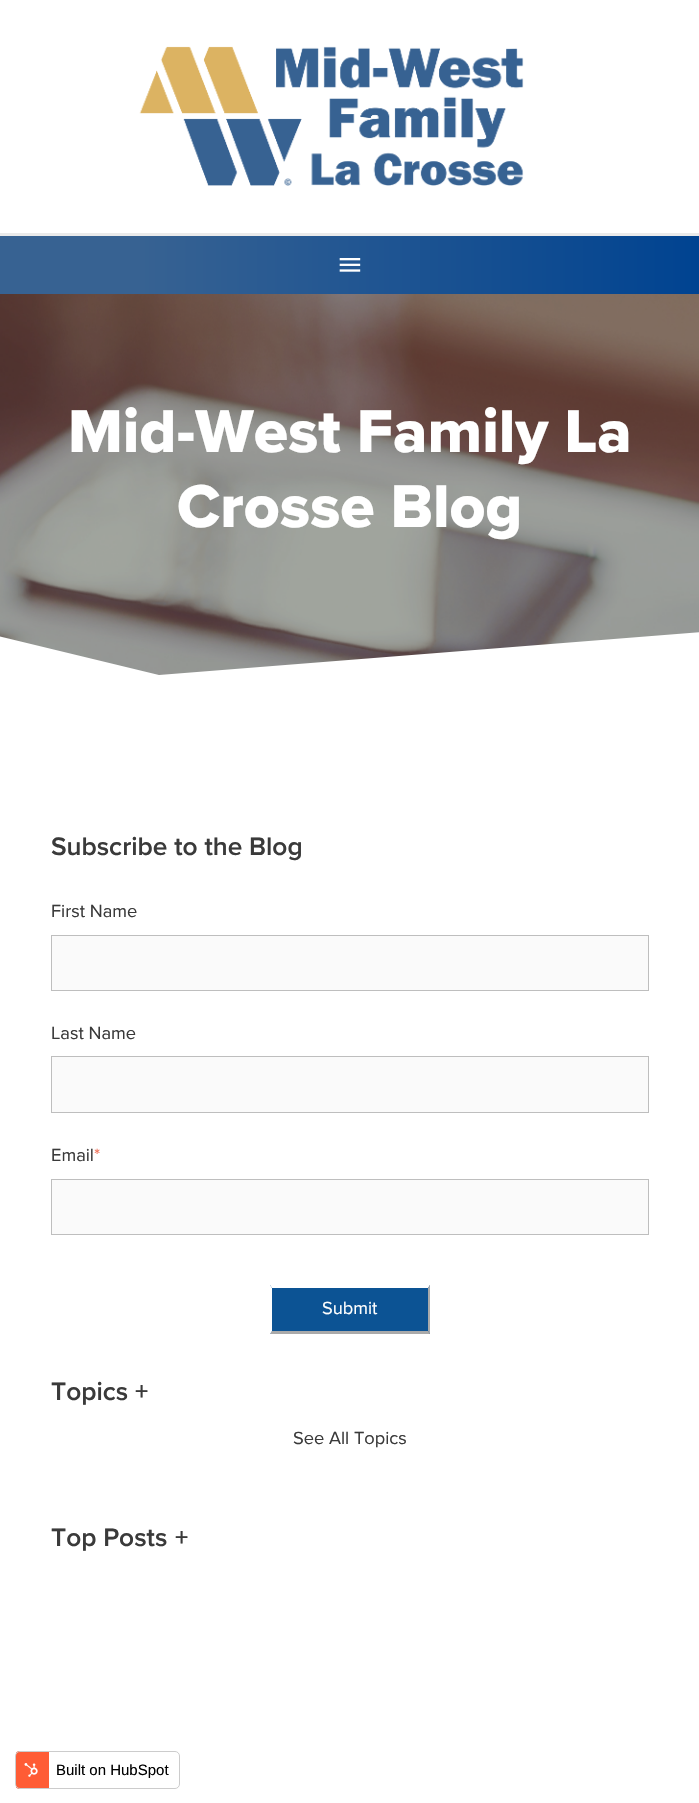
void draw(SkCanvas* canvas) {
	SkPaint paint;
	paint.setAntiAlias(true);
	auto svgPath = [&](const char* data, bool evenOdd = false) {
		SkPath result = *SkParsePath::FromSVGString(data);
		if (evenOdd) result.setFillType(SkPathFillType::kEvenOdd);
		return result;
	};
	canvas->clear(0xffffffff);
	paint.setColor(0xffeaeaea);
	canvas->drawRect(SkRect::MakeXYWH(0, 233, 699, 3), paint);
	canvas->drawImageRect(SkImages::DeferredFromEncodedData(SkData::MakeFromFileName("img1.png")), SkRect::MakeXYWH(139, 46, 385, 140), SkSamplingOptions());
	{
		const SkColor colors[] = {0xff376292, 0xff004391};
		const float stops[] = {0.2, 1};
		const SkPoint ends[] = {{0, 265}, {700, 265}};
		paint.setShader(SkGradientShader::MakeLinear(ends, colors, stops, 2, SkTileMode::kClamp));
		paint.setAlpha(255);
	}
	canvas->drawRect(SkRect::MakeXYWH(0, 236, 699, 58), paint);
	canvas->drawImageRect(SkImages::DeferredFromEncodedData(SkData::MakeFromFileName("img2.png")), SkRect::MakeXYWH(339, 258, 22, 14), SkSamplingOptions());
	canvas->drawImageRect(SkImages::DeferredFromEncodedData(SkData::MakeFromFileName("img3.png")), SkRect::MakeXYWH(0, 294, 699, 381), SkSamplingOptions());
	SkFont f1(fontMgr->matchFamilyStyle("Proxima Nova", SkFontStyle(800, SkFontStyle::kNormal_Width, SkFontStyle::kUpright_Slant)), 62.5);
	f1.setSubpixel(true);
	paint.setShader(nullptr);
	paint.setColor(0xffffffff);
	canvas->drawString("Mid-West Family La", 68, 452, f1, paint);
	canvas->drawString("Crosse Blog", 177, 527, f1, paint);
	canvas->drawPath(svgPath("M-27 630V679H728V630L159 675Z"), paint);
	SkFont f2(fontMgr->matchFamilyStyle("Proxima Nova", SkFontStyle(600, SkFontStyle::kNormal_Width, SkFontStyle::kUpright_Slant)), 26.25);
	f2.setSubpixel(true);
	paint.setColor(0xff3a3a3a);
	canvas->drawString("Subscribe to the Blog", 51, 855, f2, paint);
	SkFont f3(fontMgr->matchFamilyStyle("Proxima Nova", SkFontStyle::Normal()), 18.25);
	f3.setSubpixel(true);
	canvas->drawString("First Name", 51, 917, f3, paint);
	paint.setColor(0xfffafafa);
	canvas->drawRect(SkRect::MakeXYWH(51.5, 935.5, 597, 55), paint);
	paint.setStroke(true);
	paint.setStrokeWidth(1);
	paint.setColor(0xffbebebe);
	canvas->drawRect(SkRect::MakeXYWH(51.5, 935.5, 597, 55), paint);
	paint.setStroke(false);
	paint.setColor(0xff3a3a3a);
	canvas->drawString("Last Name", 51, 1039, f3, paint);
	paint.setColor(0xfffafafa);
	canvas->drawRect(SkRect::MakeXYWH(51.5, 1056.5, 597, 56), paint);
	paint.setStroke(true);
	paint.setColor(0xffbebebe);
	canvas->drawRect(SkRect::MakeXYWH(51.5, 1056.5, 597, 56), paint);
	paint.setStroke(false);
	paint.setColor(0xff3a3a3a);
	canvas->drawString("Email", 51, 1161, f3, paint);
	paint.setColor(0xffef6b51);
	canvas->drawString("*", 94, 1161, f3, paint);
	paint.setColor(0xfffafafa);
	canvas->drawRect(SkRect::MakeXYWH(51.5, 1179.5, 597, 55), paint);
	paint.setStroke(true);
	paint.setColor(0xffbebebe);
	canvas->drawRect(SkRect::MakeXYWH(51.5, 1179.5, 597, 55), paint);
	paint.setStroke(false);
	paint.setColor(0xff0c5394);
	canvas->drawRect(SkRect::MakeXYWH(270, 1285, 160, 49), paint);
	paint.setColor(0xffffffff);
	canvas->drawPath(svgPath("M270 1285H430L428 1288H272Z"), paint);
	paint.setColor(0xffaaaaaa);
	canvas->drawPath(svgPath("M430 1285V1334L428 1331V1288Z"), paint);
	canvas->drawPath(svgPath("M430 1334H270L272 1331H428Z"), paint);
	paint.setColor(0xffffffff);
	canvas->drawPath(svgPath("M270 1334V1285L272 1288V1331Z"), paint);
	canvas->drawString("Submit", 322, 1314, f3, paint);
	paint.setColor(0xff3a3a3a);
	canvas->drawString("Topics", 51, 1400, f2, paint);
	canvas->drawString("+", 135, 1400, f2, paint);
	canvas->drawString("See All Topics", 293, 1444, f3, paint);
	canvas->drawString("Top Posts", 51, 1546, f2, paint);
	canvas->drawString("+", 175, 1546, f2, paint);
	canvas->save();
	canvas->clipPath(svgPath("M20 1751H175C178 1751 180 1753 180 1756V1784C180 1787 178 1789 175 1789H20C17 1789 15 1787 15 1784V1756C15 1753 17 1751 20 1751Z"), true);
	paint.setColor(0xffff5c35);
	canvas->drawRect(SkRect::MakeXYWH(16, 1751, 33, 38), paint);
	canvas->restore();
	paint.setStroke(true);
	paint.setColor(0xffcccccc);
	canvas->drawRoundRect(SkRect::MakeXYWH(15.5, 1751.5, 164, 37), 4.5, 4.5, paint);
	canvas->drawImageRect(SkImages::DeferredFromEncodedData(SkData::MakeFromFileName("img4.png")), SkRect::MakeXYWH(24, 1763, 14, 14), SkSamplingOptions());
	SkFont f4(fontMgr->matchFamilyStyle("Liberation Sans", SkFontStyle::Normal()), 15);
	f4.setSubpixel(true);
	paint.setStroke(false);
	paint.setColor(0xff000000);
	canvas->drawString("Built on HubSpot", 56, 1775, f4, paint);
}
